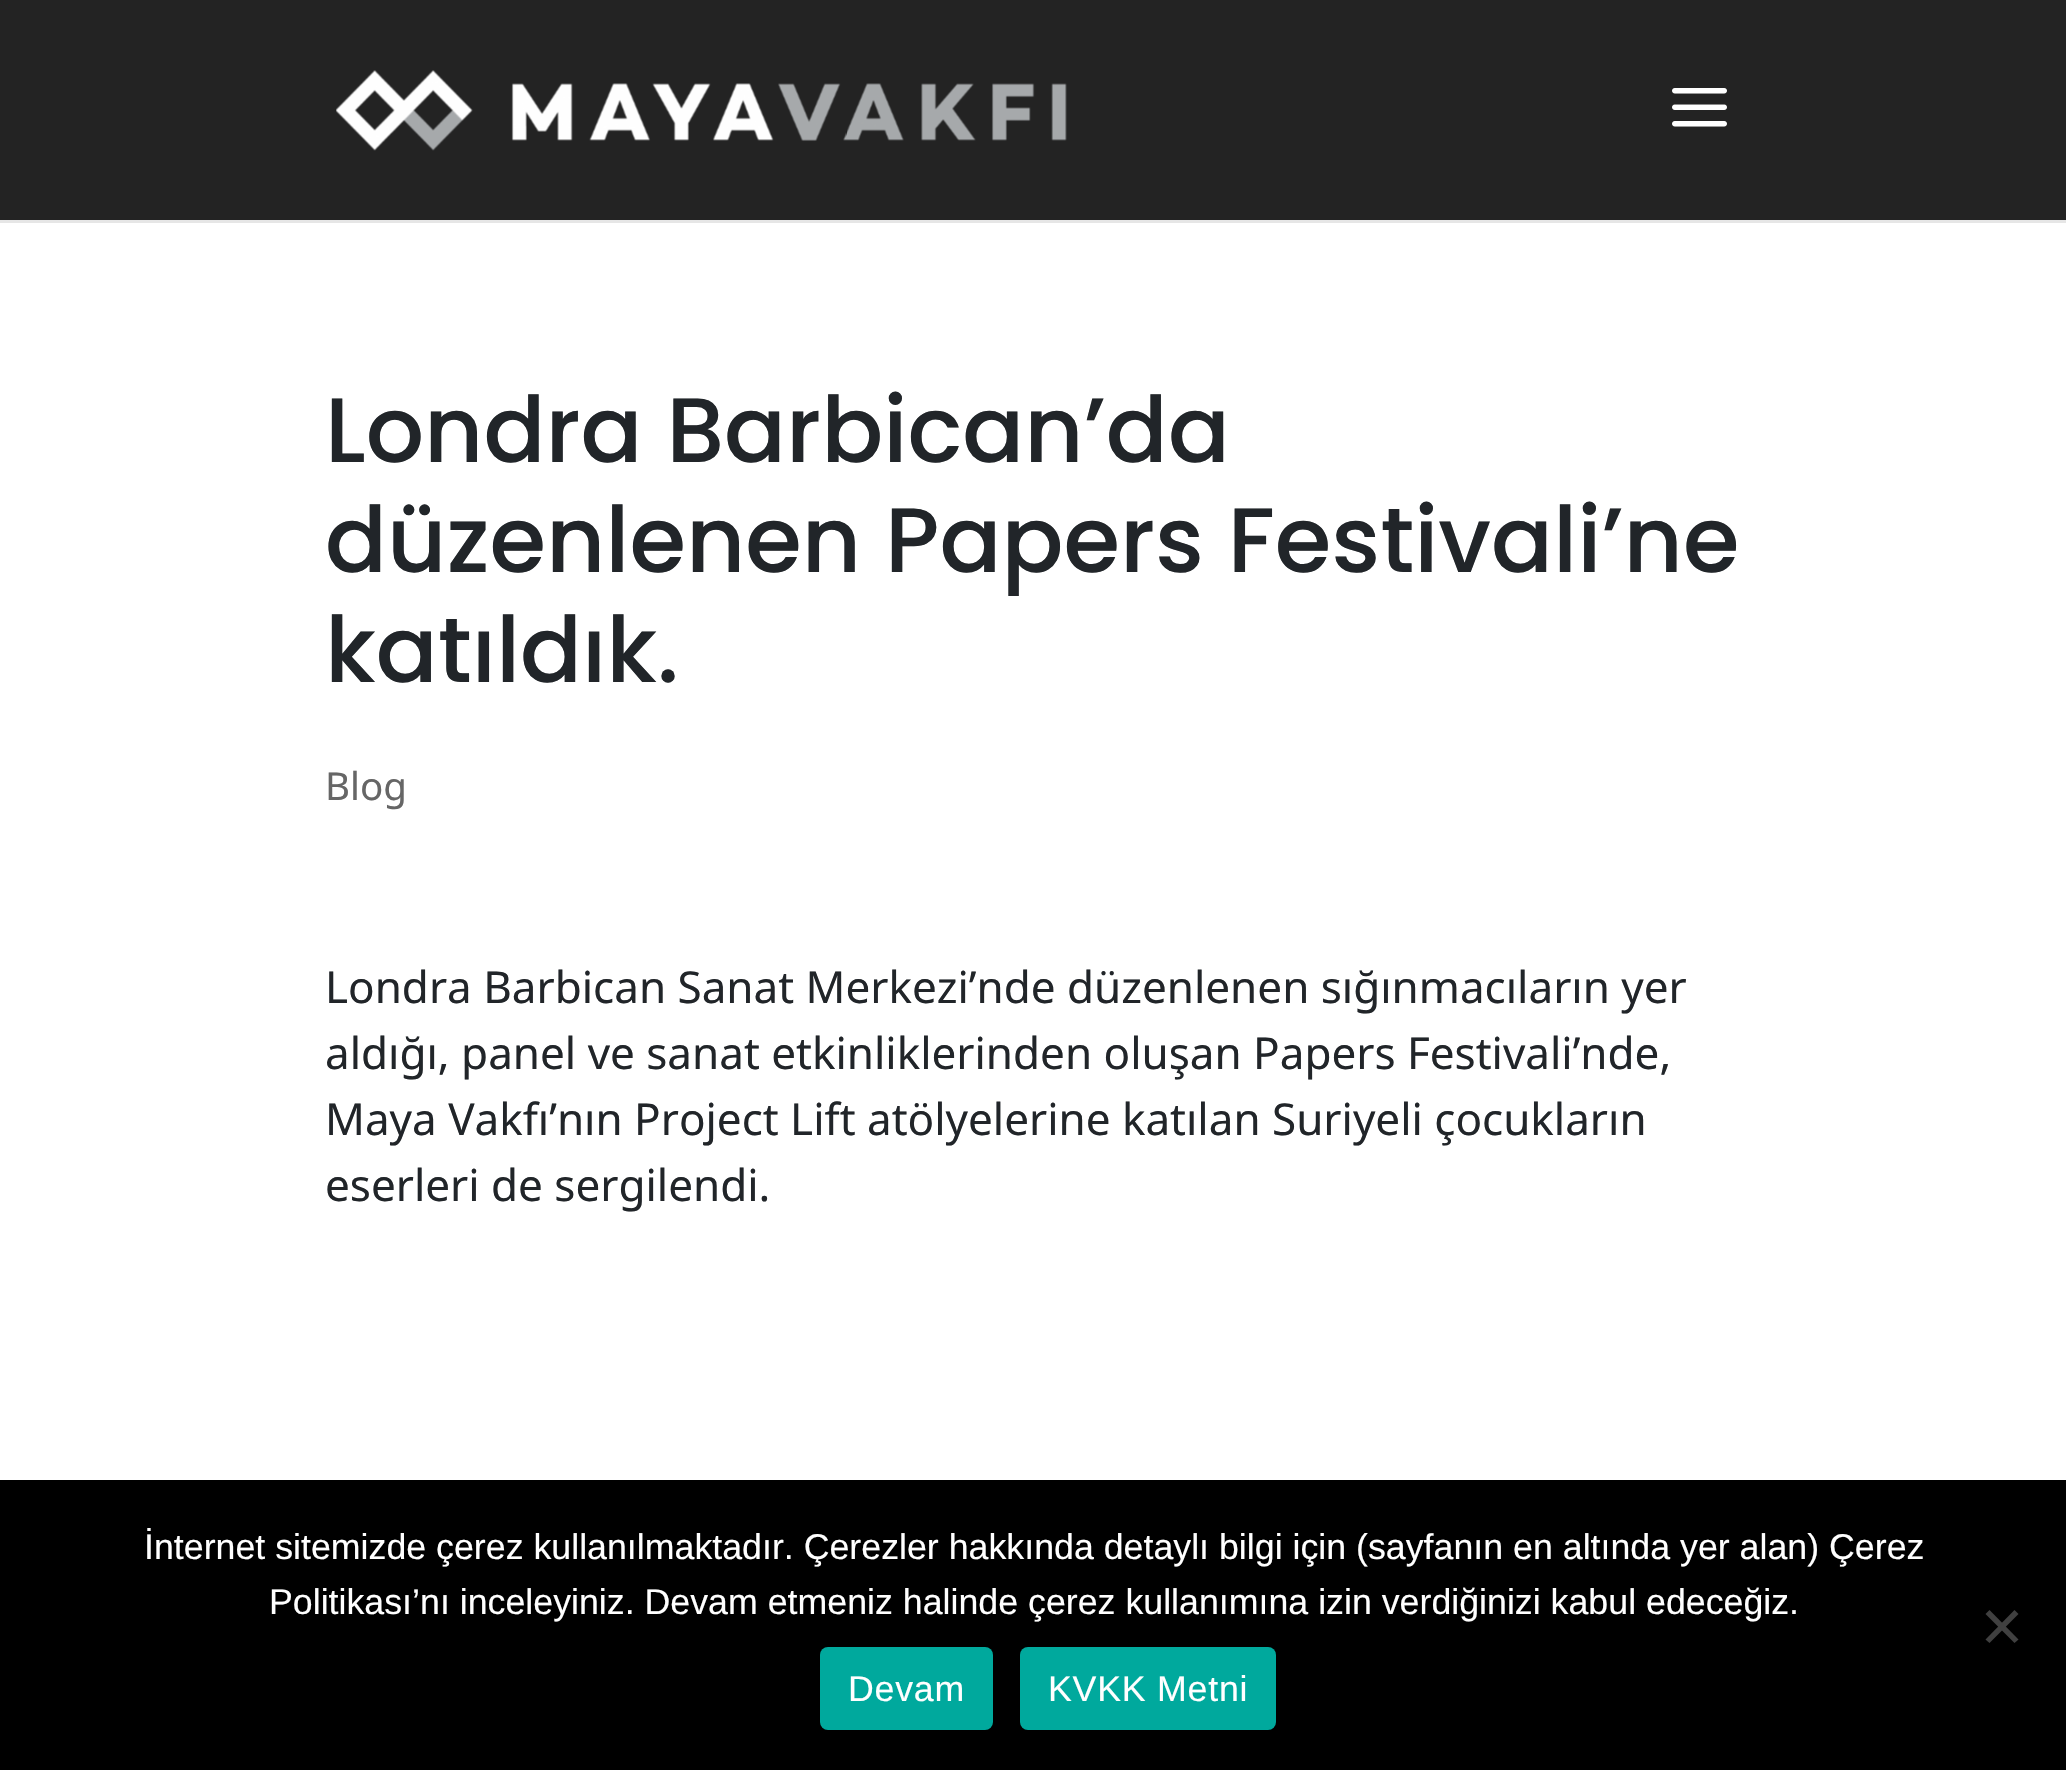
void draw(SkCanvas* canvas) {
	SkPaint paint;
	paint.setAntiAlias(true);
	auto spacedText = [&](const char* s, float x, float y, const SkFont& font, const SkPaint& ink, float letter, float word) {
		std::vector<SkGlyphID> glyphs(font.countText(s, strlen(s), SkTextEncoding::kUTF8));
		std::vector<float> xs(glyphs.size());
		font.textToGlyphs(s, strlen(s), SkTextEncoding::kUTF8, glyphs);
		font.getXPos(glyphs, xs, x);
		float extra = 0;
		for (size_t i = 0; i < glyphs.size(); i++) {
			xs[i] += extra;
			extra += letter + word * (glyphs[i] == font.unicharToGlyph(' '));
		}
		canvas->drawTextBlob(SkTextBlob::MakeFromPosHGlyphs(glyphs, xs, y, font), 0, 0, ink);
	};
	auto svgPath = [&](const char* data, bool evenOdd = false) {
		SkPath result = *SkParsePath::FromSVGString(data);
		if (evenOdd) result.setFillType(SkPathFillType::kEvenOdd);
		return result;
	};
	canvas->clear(0xffffffff);
	paint.setColor(0xffe6e6e6);
	canvas->drawRect(SkRect::MakeXYWH(0, 220, 2066, 3), paint);
	paint.setColor(0xff232323);
	canvas->drawRect(SkRect::MakeXYWH(0, 0, 2066, 220), paint);
	canvas->drawImageRect(SkImages::DeferredFromEncodedData(SkData::MakeFromFileName("img1.png")), SkRect::MakeXYWH(336, 70, 731, 81), SkSamplingOptions());
	canvas->drawImageRect(SkImages::DeferredFromEncodedData(SkData::MakeFromFileName("img2.png")), SkRect::MakeXYWH(1672, 88, 55, 39), SkSamplingOptions());
	SkFont f1(fontMgr->matchFamilyStyle("Poppins", SkFontStyle(500, SkFontStyle::kNormal_Width, SkFontStyle::kUpright_Slant)), 91.5);
	f1.setSubpixel(true);
	paint.setColor(0xff212529);
	canvas->drawString("Londra Barbican’da", 325, 462, f1, paint);
	canvas->drawString("düzenlenen Papers Festivali’ne", 325, 572, f1, paint);
	canvas->drawString("katıldık.", 325, 682, f1, paint);
	SkFont f2(fontMgr->matchFamilyStyle("Noto Sans", SkFontStyle::Normal()), 38.5);
	f2.setSubpixel(true);
	paint.setColor(0xff666666);
	canvas->drawString("Blog", 325, 800, f2, paint);
	SkFont f3(fontMgr->matchFamilyStyle("Noto Sans", SkFontStyle::Normal()), 44);
	f3.setSubpixel(true);
	paint.setColor(0xff212529);
	canvas->drawString("Londra Barbican Sanat Merkezi’nde düzenlenen sığınmacıların yer", 325, 1003, f3, paint);
	canvas->drawString("aldığı, panel ve sanat etkinliklerinden oluşan Papers Festivali’nde,", 325, 1069, f3, paint);
	canvas->drawString("Maya Vakfı’nın Project Lift atölyelerine katılan Suriyeli çocukların", 325, 1135, f3, paint);
	canvas->drawString("eserleri de sergilendi.", 325, 1201, f3, paint);
	paint.setColor(0xff000000);
	canvas->drawRect(SkRect::MakeXYWH(0, 1480, 2066, 290), paint);
	SkFont f4(fontMgr->matchFamilyStyle("Liberation Sans", SkFontStyle::Normal()), 35.75);
	f4.setSubpixel(true);
	paint.setColor(0xffffffff);
	canvas->drawString("İnternet sitemizde çerez kullanılmaktadır. Çerezler hakkında detaylı bilgi için (sayfanın en altında yer alan) Çerez", 144, 1559, f4, paint);
	canvas->drawString("Politikası’nı inceleyiniz. Devam etmeniz halinde çerez kullanımına izin verdiğinizi kabul edeceğiz.", 269, 1614, f4, paint);
	paint.setColor(0xff404040);
	canvas->drawPath(svgPath("M2014.5 1610L2018.5 1614L1989.5 1643L1985.5 1639.5Z"), paint);
	canvas->drawPath(svgPath("M1985.5 1614L1989.5 1610L2018.5 1639.5L2014.5 1643Z"), paint);
	paint.setColor(0xff00a99d);
	canvas->drawRoundRect(SkRect::MakeXYWH(820, 1647, 173, 83), 8, 8, paint);
	paint.setColor(0xffffffff);
	spacedText("Devam", 848, 1701, f4, paint, 0.75, 0);
	paint.setColor(0xff00a99d);
	canvas->drawRoundRect(SkRect::MakeXYWH(1020, 1647, 256, 83), 8, 8, paint);
	paint.setColor(0xffffffff);
	spacedText("KVKK Metni", 1048, 1701, f4, paint, 0.75, 0);
}
